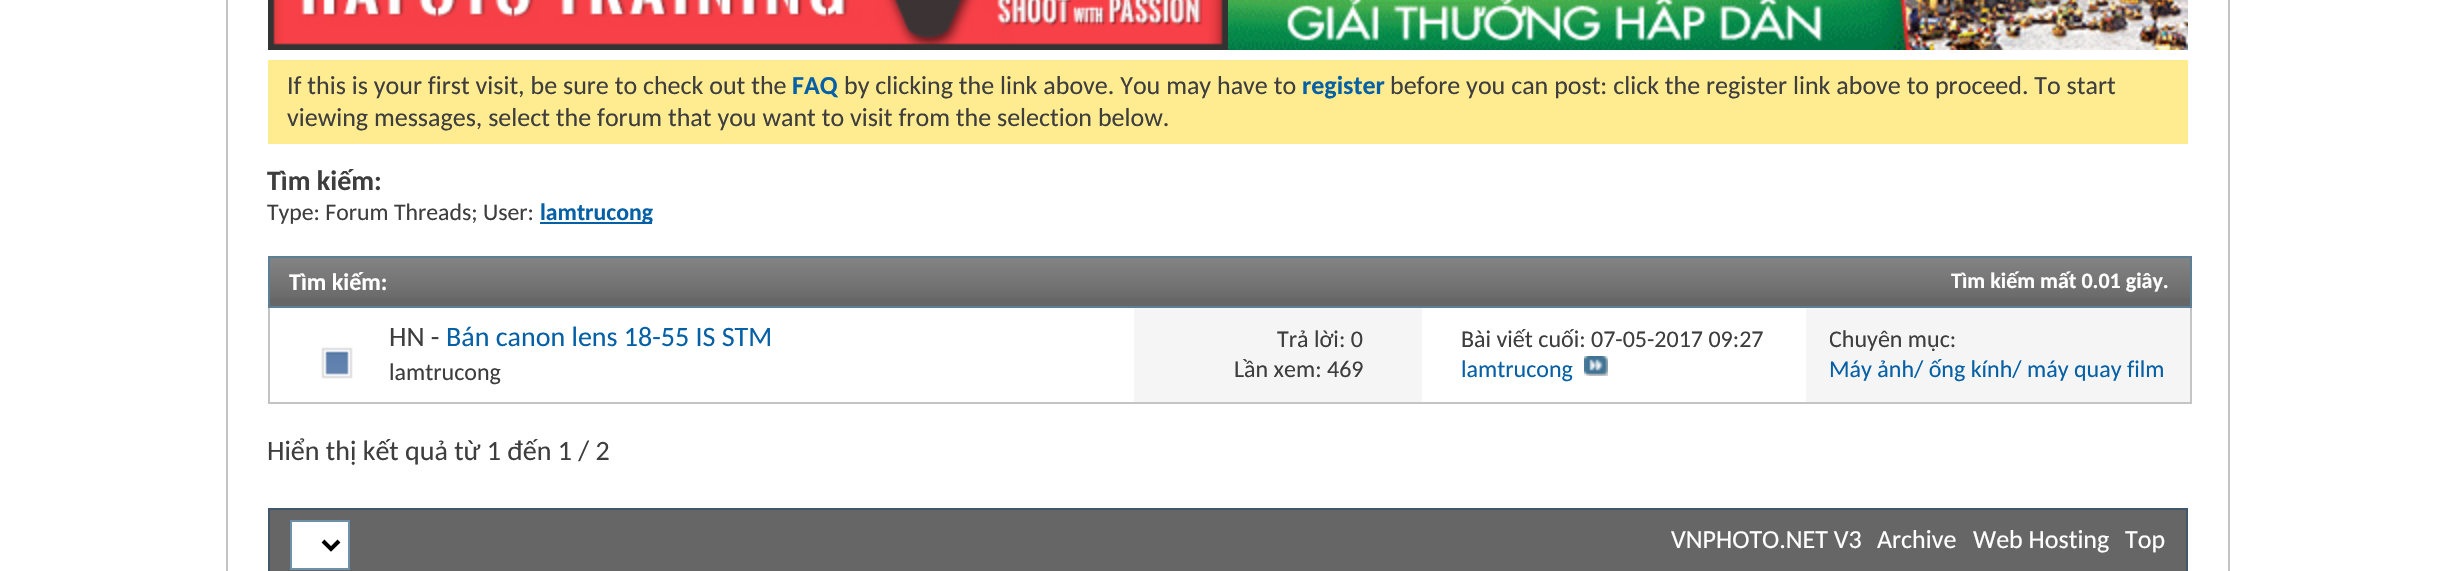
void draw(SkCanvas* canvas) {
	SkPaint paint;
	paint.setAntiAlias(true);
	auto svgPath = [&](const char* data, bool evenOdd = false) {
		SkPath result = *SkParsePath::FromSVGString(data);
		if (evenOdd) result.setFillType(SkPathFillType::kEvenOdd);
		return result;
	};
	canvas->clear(0xffffffff);
	paint.setStroke(true);
	paint.setStrokeWidth(2);
	paint.setColor(0xffc4c4c4);
	canvas->drawRect(SkRect::MakeXYWH(227, -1, 2002, 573), paint);
	canvas->drawImageRect(SkImages::DeferredFromEncodedData(SkData::MakeFromFileName("img1.png")), SkRect::MakeXYWH(268, 0, 960, 50), SkSamplingOptions());
	canvas->drawImageRect(SkImages::DeferredFromEncodedData(SkData::MakeFromFileName("img2.png")), SkRect::MakeXYWH(1228, 0, 960, 50), SkSamplingOptions());
	paint.setStroke(false);
	paint.setColor(0xffffeb90);
	canvas->drawRect(SkRect::MakeXYWH(268, 60, 1920, 84), paint);
	SkFont f1(fontMgr->matchFamilyStyle("Carlito", SkFontStyle::Normal()), 26);
	f1.setSubpixel(true);
	paint.setColor(0xff3e3e3e);
	canvas->drawString("If this is your first visit, be sure to check out the", 287, 94, f1, paint);
	SkFont f2(fontMgr->matchFamilyStyle("Carlito", SkFontStyle::Bold()), 26);
	f2.setSubpixel(true);
	paint.setColor(0xff0560a6);
	canvas->drawString("FAQ", 792, 94, f2, paint);
	paint.setColor(0xff3e3e3e);
	canvas->drawString("by clicking the link above. You may have to", 844, 94, f1, paint);
	paint.setColor(0xff0560a6);
	canvas->drawString("register", 1302, 94, f2, paint);
	paint.setColor(0xff3e3e3e);
	canvas->drawString("before you can post: click the register link above to proceed. To start", 1390, 94, f1, paint);
	canvas->drawString("viewing messages, select the forum that you want to visit from the selection below.", 287, 126, f1, paint);
	SkFont f3(fontMgr->matchFamilyStyle("Carlito", SkFontStyle::Bold()), 28);
	f3.setSubpixel(true);
	canvas->drawString("Tìm kiếm:", 267, 190, f3, paint);
	SkFont f4(fontMgr->matchFamilyStyle("Carlito", SkFontStyle::Normal()), 23.75);
	f4.setSubpixel(true);
	canvas->drawString("Type: Forum Threads; User:", 267, 220, f4, paint);
	paint.setColor(0xff0560a6);
	canvas->drawRect(SkRect::MakeXYWH(540, 222, 112, 2), paint);
	SkFont f5(fontMgr->matchFamilyStyle("Carlito", SkFontStyle::Bold()), 23.75);
	f5.setSubpixel(true);
	canvas->drawString("lamtrucong", 540, 220, f5, paint);
	paint.setColor(0xff666666);
	canvas->drawRect(SkRect::MakeXYWH(270, 258, 1920, 48), paint);
	canvas->drawImageRect(SkImages::DeferredFromEncodedData(SkData::MakeFromFileName("img3.png")), SkRect::MakeXYWH(270, 258, 1920, 40), SkSamplingOptions());
	paint.setStroke(true);
	paint.setColor(0xff5a7f97);
	canvas->drawRect(SkRect::MakeXYWH(269, 257, 1922, 50), paint);
	SkFont f6(fontMgr->matchFamilyStyle("Carlito", SkFontStyle::Bold()), 24);
	f6.setSubpixel(true);
	paint.setStroke(false);
	paint.setColor(0xffffffff);
	canvas->drawString("Tìm kiếm:", 289, 290, f6, paint);
	SkFont f7(fontMgr->matchFamilyStyle("Carlito", SkFontStyle::Bold()), 22);
	f7.setSubpixel(true);
	canvas->drawString("Tìm kiếm mất 0.01 giây.", 1951, 288, f7, paint);
	paint.setColor(0xffc4c4c4);
	canvas->drawRect(SkRect::MakeXYWH(2190, 308, 2, 96), paint);
	canvas->drawRect(SkRect::MakeXYWH(268, 402, 1924, 2), paint);
	canvas->drawRect(SkRect::MakeXYWH(268, 308, 2, 96), paint);
	canvas->drawImageRect(SkImages::DeferredFromEncodedData(SkData::MakeFromFileName("img4.png")), SkRect::MakeXYWH(321, 347, 32, 32), SkSamplingOptions());
	SkFont f8(fontMgr->matchFamilyStyle("Carlito", SkFontStyle::Normal()), 28);
	f8.setSubpixel(true);
	paint.setColor(0xff3e3e3e);
	canvas->drawString("HN -", 389, 346, f8, paint);
	paint.setColor(0xff0560a6);
	canvas->drawString("Bán canon lens 18-55 IS STM", 446, 346, f8, paint);
	SkFont f9(fontMgr->matchFamilyStyle("Carlito", SkFontStyle::Normal()), 24);
	f9.setSubpixel(true);
	paint.setColor(0xff3e3e3e);
	canvas->drawString("lamtrucong", 389, 380, f9, paint);
	paint.setColor(0xfff5f5f5);
	canvas->drawRect(SkRect::MakeXYWH(1134, 308, 288, 94), paint);
	paint.setColor(0xff3e3e3e);
	canvas->drawString("Trả lời: 0", 1277, 347, f9, paint);
	canvas->drawString("Lần xem: 469", 1234, 377, f9, paint);
	canvas->drawString("Bài viết cuối: 07-05-2017 09:27", 1461, 347, f9, paint);
	paint.setColor(0xff0560a6);
	canvas->drawString("lamtrucong", 1461, 377, f9, paint);
	canvas->drawImageRect(SkImages::DeferredFromEncodedData(SkData::MakeFromFileName("img5.png")), SkRect::MakeXYWH(1584, 356, 24, 20), SkSamplingOptions());
	paint.setColor(0xfff5f5f5);
	canvas->drawRect(SkRect::MakeXYWH(1806, 308, 384, 94), paint);
	canvas->save();
	canvas->clipRect(SkRect::MakeXYWH(1830, 326, 334, 58));
	paint.setColor(0xff3e3e3e);
	canvas->drawString("Chuyên mục:", 1829, 347, f9, paint);
	canvas->restore();
	paint.setColor(0xff0560a6);
	canvas->drawString("Máy ảnh/ ống kính/ máy quay film", 1829, 377, f9, paint);
	paint.setColor(0xff3e3e3e);
	canvas->drawString("Hiển thị kết quả từ 1 đến 1 / 2", 267, 460, f8, paint);
	paint.setColor(0xff666666);
	canvas->drawRect(SkRect::MakeXYWH(269, 509, 1918, 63), paint);
	paint.setStroke(true);
	paint.setColor(0xff425769);
	canvas->drawRect(SkRect::MakeXYWH(269, 509, 1918, 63), paint);
	paint.setStroke(false);
	paint.setColor(0xffffffff);
	canvas->drawRect(SkRect::MakeXYWH(291, 521, 58, 48), paint);
	paint.setStroke(true);
	paint.setColor(0xff6b91ab);
	canvas->drawRect(SkRect::MakeXYWH(291, 521, 58, 48), paint);
	paint.setStrokeWidth(4);
	paint.setColor(0xff000000);
	canvas->drawPath(svgPath("M323 541L331 549L339 541"), paint);
	paint.setStroke(false);
	paint.setColor(0xffffffff);
	canvas->drawString("VNPHOTO.NET V3", 1671, 548, f1, paint);
	canvas->drawString("Archive", 1877, 548, f1, paint);
	canvas->drawString("Web Hosting", 1973, 548, f1, paint);
	canvas->drawString("Top", 2125, 548, f1, paint);
}
